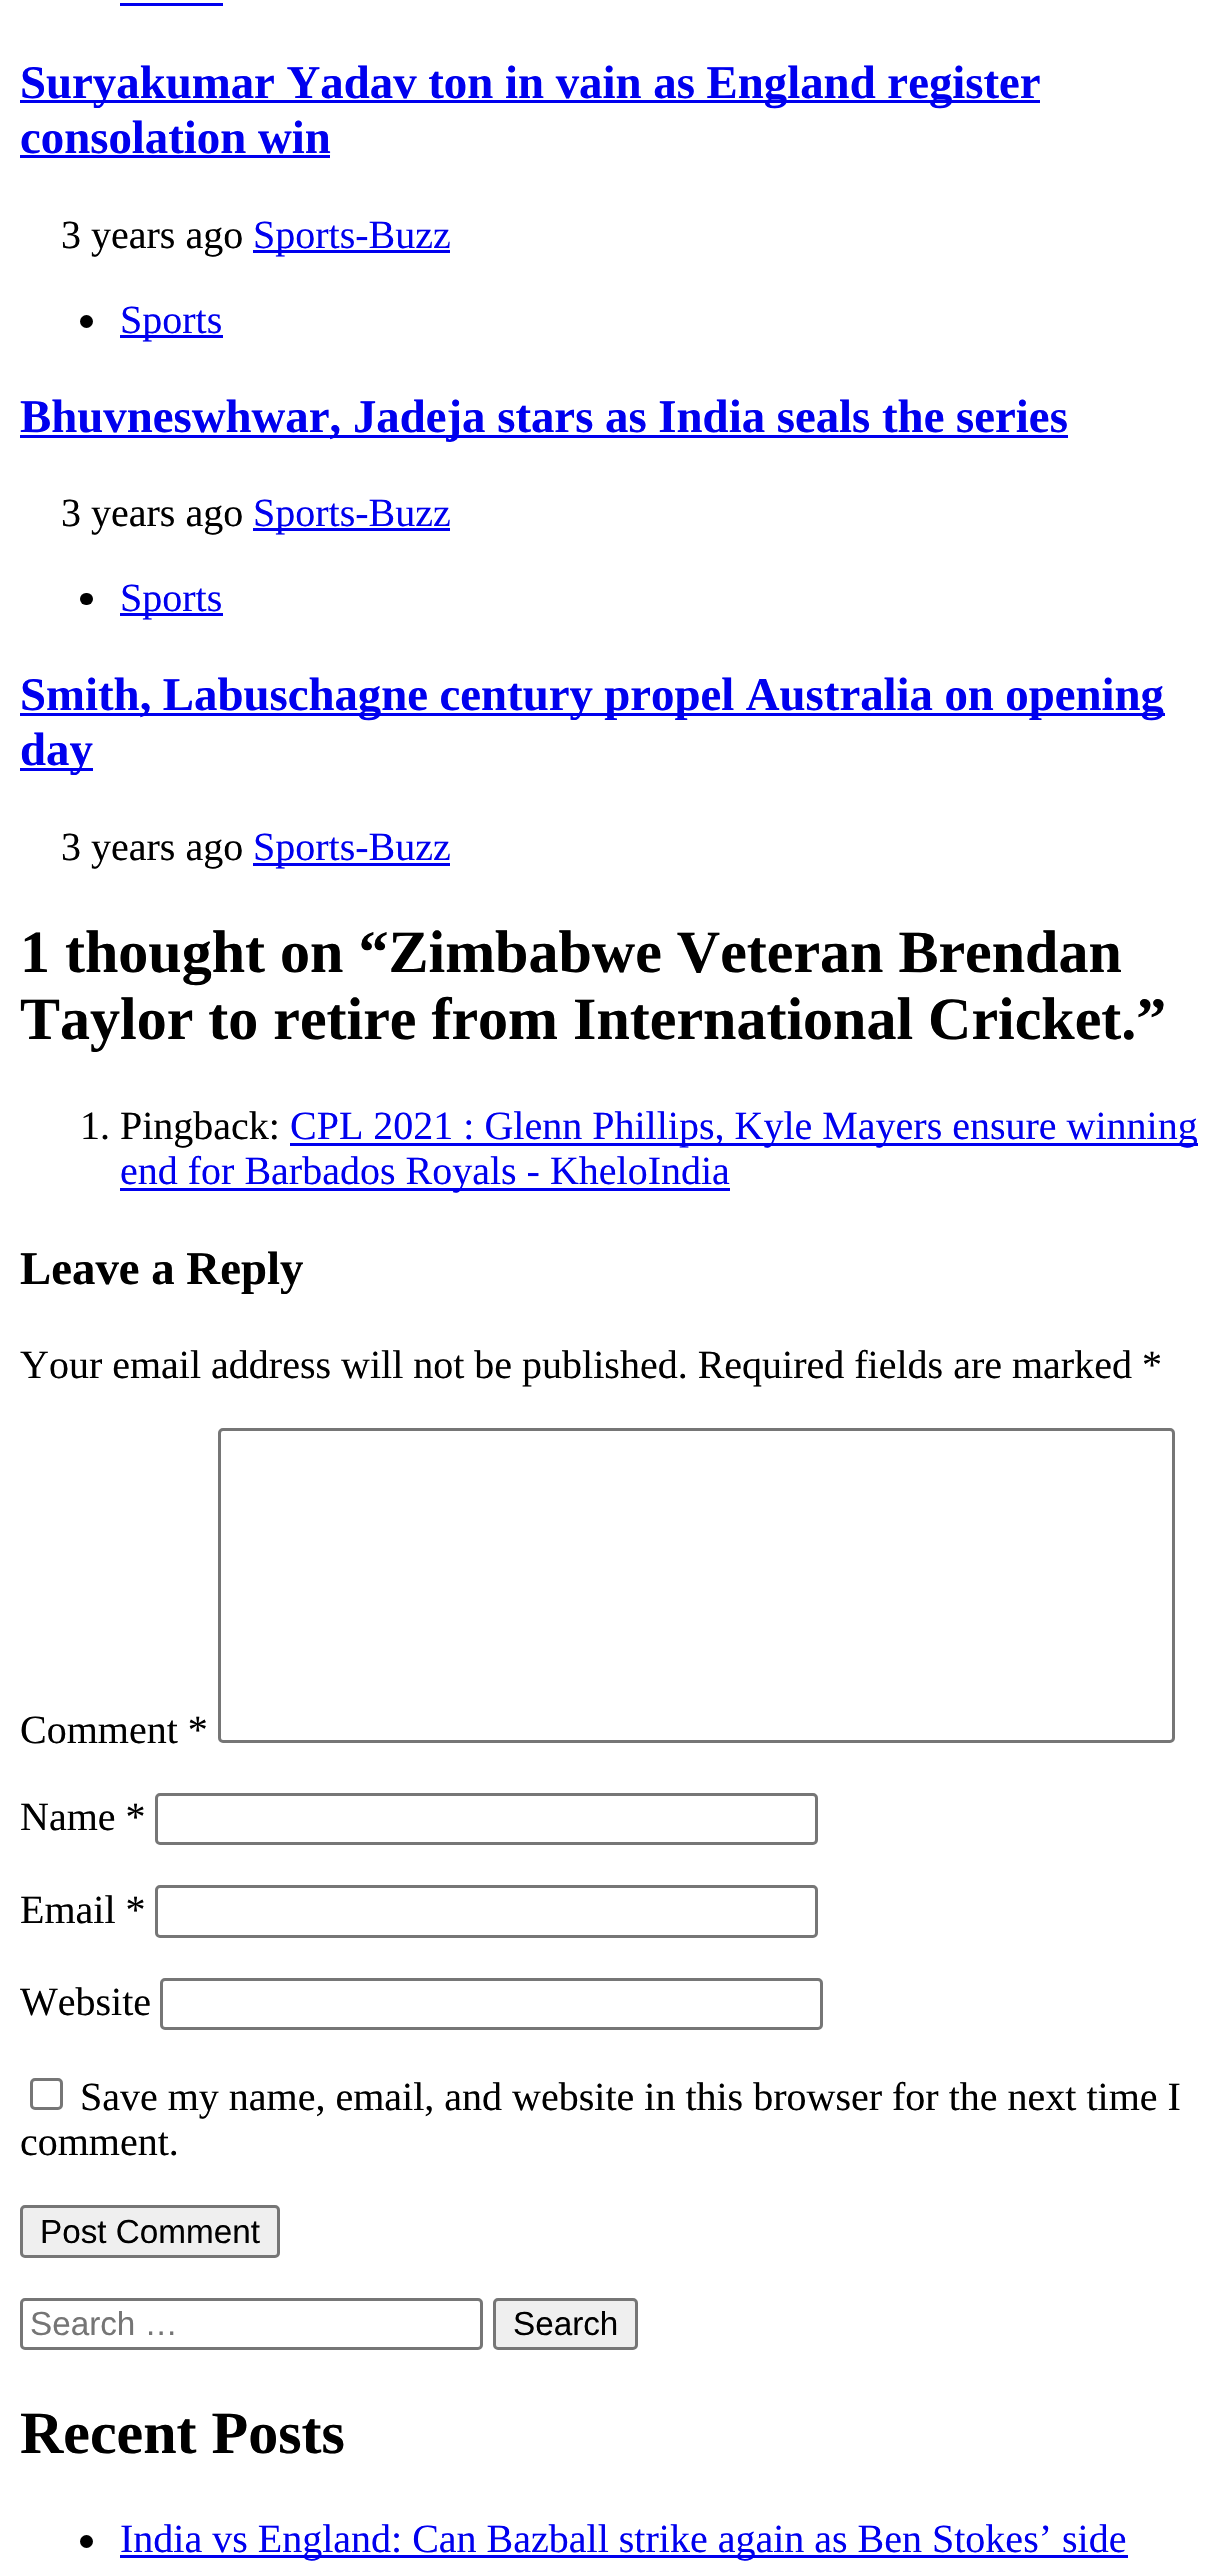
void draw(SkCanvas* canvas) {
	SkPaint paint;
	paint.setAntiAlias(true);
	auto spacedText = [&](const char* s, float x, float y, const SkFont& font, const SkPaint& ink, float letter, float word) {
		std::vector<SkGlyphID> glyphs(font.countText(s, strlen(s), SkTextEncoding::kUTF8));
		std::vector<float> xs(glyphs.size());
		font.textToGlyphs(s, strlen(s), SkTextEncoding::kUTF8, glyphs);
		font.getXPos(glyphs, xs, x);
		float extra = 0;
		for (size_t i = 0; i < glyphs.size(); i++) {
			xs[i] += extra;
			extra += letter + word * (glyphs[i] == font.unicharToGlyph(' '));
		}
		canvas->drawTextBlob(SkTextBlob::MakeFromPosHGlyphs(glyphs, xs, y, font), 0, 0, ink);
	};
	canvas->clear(0xffffffff);
	paint.setColor(0xff0000ee);
	canvas->drawRect(SkRect::MakeXYWH(120, 3, 103, 3), paint);
	canvas->drawRect(SkRect::MakeXYWH(20, 100, 1020, 3), paint);
	SkFont f1(fontMgr->matchFamilyStyle("Liberation Serif", SkFontStyle::Bold()), 46.8);
	f1.setSubpixel(true);
	canvas->drawString("Suryakumar Yadav ton in vain as England register", 20, 98, f1, paint);
	canvas->drawString("consolation win", 20, 153, f1, paint);
	canvas->drawRect(SkRect::MakeXYWH(20, 155, 310, 3), paint);
	SkFont f2(fontMgr->matchFamilyStyle("Liberation Serif", SkFontStyle::Normal()), 40);
	f2.setSubpixel(true);
	paint.setColor(0xff000000);
	canvas->drawString("3 years ago", 61, 248, f2, paint);
	paint.setColor(0xff0000ee);
	canvas->drawRect(SkRect::MakeXYWH(253, 250, 197, 3), paint);
	canvas->drawString("Sports-Buzz", 253, 248, f2, paint);
	paint.setColor(0xff000000);
	canvas->drawCircle(86.5, 321.5, 6.5, paint);
	paint.setColor(0xff0000ee);
	canvas->drawRect(SkRect::MakeXYWH(120, 335, 103, 3), paint);
	canvas->drawString("Sports", 120, 333, f2, paint);
	canvas->drawRect(SkRect::MakeXYWH(20, 435, 1048, 3), paint);
	canvas->drawString("Bhuvneswhwar, Jadeja stars as India seals the series", 20, 432, f1, paint);
	paint.setColor(0xff000000);
	canvas->drawString("3 years ago", 61, 526, f2, paint);
	paint.setColor(0xff0000ee);
	canvas->drawRect(SkRect::MakeXYWH(253, 528, 197, 3), paint);
	canvas->drawString("Sports-Buzz", 253, 526, f2, paint);
	paint.setColor(0xff000000);
	canvas->drawRoundRect(SkRect::MakeXYWH(80, 593, 13, 12), 6, 6, paint);
	paint.setColor(0xff0000ee);
	canvas->drawRect(SkRect::MakeXYWH(120, 613, 103, 3), paint);
	canvas->drawString("Sports", 120, 611, f2, paint);
	canvas->drawRect(SkRect::MakeXYWH(20, 713, 1145, 3), paint);
	spacedText("Smith, Labuschagne century propel Australia on opening", 20, 710, f1, paint, 0, -0.25);
	canvas->drawRect(SkRect::MakeXYWH(20, 768, 73, 3), paint);
	canvas->drawString("day", 20, 765, f1, paint);
	paint.setColor(0xff000000);
	canvas->drawString("3 years ago", 61, 860, f2, paint);
	paint.setColor(0xff0000ee);
	canvas->drawRect(SkRect::MakeXYWH(253, 863, 197, 3), paint);
	canvas->drawString("Sports-Buzz", 253, 860, f2, paint);
	SkFont f3(fontMgr->matchFamilyStyle("Liberation Serif", SkFontStyle::Bold()), 60);
	f3.setSubpixel(true);
	paint.setColor(0xff000000);
	canvas->drawString("1 thought on “Zimbabwe Veteran Brendan", 20, 972, f3, paint);
	canvas->drawString("Taylor to retire from International Cricket.”", 20, 1039, f3, paint);
	canvas->drawString("1. Pingback:", 80, 1139, f2, paint);
	paint.setColor(0xff0000ee);
	canvas->drawRect(SkRect::MakeXYWH(290, 1143, 908, 3), paint);
	canvas->drawString("CPL 2021 : Glenn Phillips, Kyle Mayers ensure winning", 290, 1139, f2, paint);
	canvas->drawRect(SkRect::MakeXYWH(120, 1188, 610, 3), paint);
	canvas->drawString("end for Barbados Royals - KheloIndia", 120, 1184, f2, paint);
	paint.setColor(0xff000000);
	canvas->drawString("Leave a Reply", 20, 1284, f1, paint);
	canvas->drawString("Your email address will not be published. Required fields are marked *", 20, 1378, f2, paint);
	canvas->drawString("Comment *", 20, 1743, f2, paint);
	paint.setStroke(true);
	paint.setStrokeWidth(3);
	paint.setColor(0xff767676);
	canvas->drawRoundRect(SkRect::MakeXYWH(219.5, 1429.5, 954, 312), 3.5, 3.5, paint);
	paint.setStroke(false);
	paint.setColor(0xff000000);
	canvas->drawString("Name *", 20, 1830, f2, paint);
	paint.setStroke(true);
	paint.setColor(0xff767676);
	canvas->drawRoundRect(SkRect::MakeXYWH(156.5, 1794.5, 660, 49), 3.5, 3.5, paint);
	paint.setStroke(false);
	paint.setColor(0xff000000);
	canvas->drawString("Email *", 20, 1923, f2, paint);
	paint.setStroke(true);
	paint.setColor(0xff767676);
	canvas->drawRoundRect(SkRect::MakeXYWH(156.5, 1886.5, 660, 50), 3.5, 3.5, paint);
	paint.setStroke(false);
	paint.setColor(0xff000000);
	canvas->drawString("Website", 20, 2015, f2, paint);
	paint.setStroke(true);
	paint.setColor(0xff767676);
	canvas->drawRoundRect(SkRect::MakeXYWH(161.5, 1979.5, 660, 49), 3.5, 3.5, paint);
	canvas->drawRoundRect(SkRect::MakeXYWH(31.5, 2079.5, 30, 29), 3.5, 3.5, paint);
	paint.setStroke(false);
	paint.setColor(0xff000000);
	canvas->drawString("Save my name, email, and website in this browser for the next time I", 80, 2110, f2, paint);
	canvas->drawString("comment.", 20, 2155, f2, paint);
	paint.setColor(0xffefefef);
	canvas->drawRoundRect(SkRect::MakeXYWH(21.5, 2206.5, 257, 50), 3.5, 3.5, paint);
	paint.setStroke(true);
	paint.setColor(0xff767676);
	canvas->drawRoundRect(SkRect::MakeXYWH(21.5, 2206.5, 257, 50), 3.5, 3.5, paint);
	SkFont f4(fontMgr->matchFamilyStyle("Liberation Sans", SkFontStyle::Normal()), 33.25);
	f4.setSubpixel(true);
	paint.setStroke(false);
	paint.setColor(0xff000000);
	canvas->drawString("Post Comment", 40, 2243, f4, paint);
	paint.setStroke(true);
	paint.setColor(0xff767676);
	canvas->drawRoundRect(SkRect::MakeXYWH(21.5, 2299.5, 460, 49), 3.5, 3.5, paint);
	paint.setStroke(false);
	paint.setColor(0xff757575);
	canvas->drawString("Search …", 30, 2335, f4, paint);
	paint.setColor(0xffefefef);
	canvas->drawRoundRect(SkRect::MakeXYWH(494.5, 2299.5, 142, 49), 3.5, 3.5, paint);
	paint.setStroke(true);
	paint.setColor(0xff767676);
	canvas->drawRoundRect(SkRect::MakeXYWH(494.5, 2299.5, 142, 49), 3.5, 3.5, paint);
	paint.setStroke(false);
	paint.setColor(0xff000000);
	canvas->drawString("Search", 513, 2335, f4, paint);
	canvas->drawString("Recent Posts", 20, 2453, f3, paint);
	canvas->drawCircle(86.5, 2541.5, 6.5, paint);
	paint.setColor(0xff0000ee);
	canvas->drawRect(SkRect::MakeXYWH(120, 2555, 1008, 3), paint);
	canvas->drawString("India vs England: Can Bazball strike again as Ben Stokes’ side", 120, 2552, f2, paint);
}
